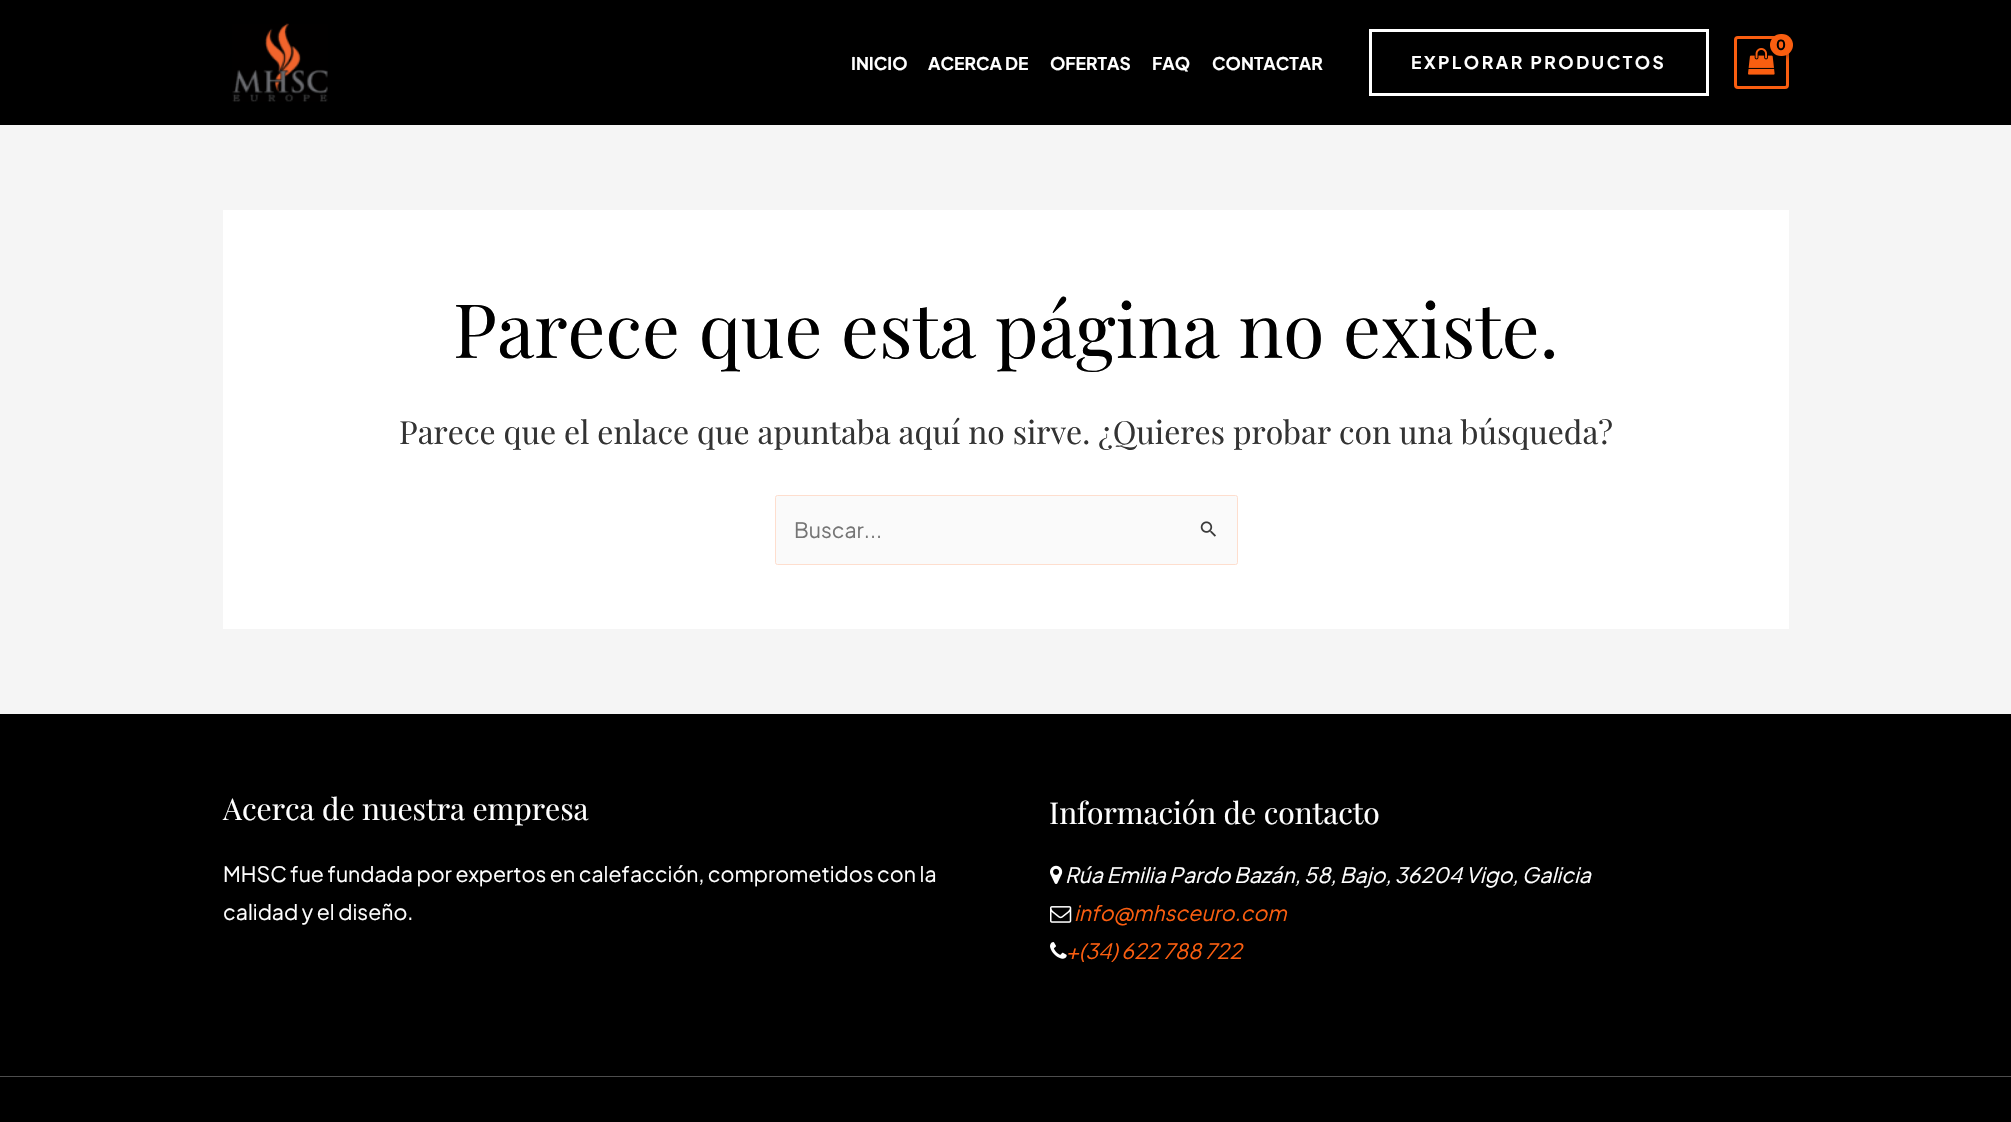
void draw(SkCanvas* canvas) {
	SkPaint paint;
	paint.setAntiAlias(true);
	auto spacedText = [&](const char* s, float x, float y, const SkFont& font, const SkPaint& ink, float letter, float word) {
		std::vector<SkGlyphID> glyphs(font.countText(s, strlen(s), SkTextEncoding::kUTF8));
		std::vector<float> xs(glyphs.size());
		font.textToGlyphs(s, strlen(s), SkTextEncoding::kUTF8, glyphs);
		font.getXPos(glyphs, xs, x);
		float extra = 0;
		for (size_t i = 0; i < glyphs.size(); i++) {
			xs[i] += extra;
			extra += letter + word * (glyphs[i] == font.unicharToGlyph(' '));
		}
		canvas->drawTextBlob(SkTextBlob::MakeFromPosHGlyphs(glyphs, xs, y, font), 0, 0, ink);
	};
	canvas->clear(0xfff5f5f5);
	paint.setColor(0xff000000);
	canvas->drawRect(SkRect::MakeXYWH(0, 0, 2011, 125), paint);
	canvas->drawImageRect(SkImages::DeferredFromEncodedData(SkData::MakeFromFileName("img1.png")), SkRect::MakeXYWH(232, 23, 96, 79), SkSamplingOptions());
	paint.setStroke(true);
	paint.setStrokeWidth(3);
	paint.setColor(0xfffa5e10);
	canvas->drawRoundRect(SkRect::MakeXYWH(1735.5, 37.5, 52, 50), 2.5, 2.5, paint);
	canvas->drawImageRect(SkImages::DeferredFromEncodedData(SkData::MakeFromFileName("img2.png")), SkRect::MakeXYWH(1748, 48, 27, 27), SkSamplingOptions());
	paint.setStroke(false);
	paint.setColor(0x4d000000);
	paint.setMaskFilter(SkMaskFilter::MakeBlur(kNormal_SkBlurStyle, 2));
	canvas->drawRoundRect(SkRect::MakeXYWH(1771, 35, 23, 23), 11.5, 11.5, paint);
	paint.setMaskFilter(nullptr);
	paint.setColor(0xfffa5e10);
	canvas->drawRoundRect(SkRect::MakeXYWH(1770, 34, 23, 22), 11, 11, paint);
	SkFont f1(fontMgr->matchFamilyStyle("Plus Jakarta Sans", SkFontStyle::Bold()), 14);
	f1.setSubpixel(true);
	paint.setColor(0xff000000);
	spacedText("0", 1776, 50, f1, paint, -1, 0);
	SkFont f2(fontMgr->matchFamilyStyle("Plus Jakarta Sans", SkFontStyle::Bold()), 17.5);
	f2.setSubpixel(true);
	paint.setColor(0xffffffff);
	canvas->drawString("INICIO", 851, 70, f2, paint);
	canvas->drawString("ACERCA DE", 928, 70, f2, paint);
	canvas->drawString("OFERTAS", 1050, 70, f2, paint);
	canvas->drawString("FAQ", 1152, 70, f2, paint);
	canvas->drawString("CONTACTAR", 1212, 70, f2, paint);
	paint.setStroke(true);
	canvas->drawRect(SkRect::MakeXYWH(1370.5, 30.5, 337, 64), paint);
	paint.setStroke(false);
	spacedText("EXPLORAR PRODUCTOS", 1411, 69, f2, paint, 2.5, 0);
	canvas->drawRect(SkRect::MakeXYWH(223, 210, 1566, 419), paint);
	SkFont f3(fontMgr->matchFamilyStyle("Playfair Display", SkFontStyle::Normal()), 75);
	f3.setSubpixel(true);
	paint.setColor(0xff000000);
	canvas->drawString("Parece que esta página no existe.", 453, 358, f3, paint);
	SkFont f4(fontMgr->matchFamilyStyle("Playfair Display", SkFontStyle::Normal()), 31.9);
	f4.setSubpixel(true);
	paint.setColor(0xff333333);
	canvas->drawString("Parece que el enlace que apuntaba aquí no sirve. ¿Quieres probar con una búsqueda?", 399, 444, f4, paint);
	paint.setColor(0xfffafafa);
	canvas->drawRoundRect(SkRect::MakeXYWH(775.5, 495.5, 462, 69), 2, 2, paint);
	paint.setStroke(true);
	paint.setStrokeWidth(1);
	paint.setColor(0xfffedece);
	canvas->drawRoundRect(SkRect::MakeXYWH(775.5, 495.5, 462, 69), 2, 2, paint);
	SkFont f5(fontMgr->matchFamilyStyle("Plus Jakarta Sans", SkFontStyle::Normal()), 21.25);
	f5.setSubpixel(true);
	paint.setStroke(false);
	paint.setColor(0xff757575);
	canvas->drawString("Buscar...", 794, 538, f5, paint);
	canvas->drawImageRect(SkImages::DeferredFromEncodedData(SkData::MakeFromFileName("img3.png")), SkRect::MakeXYWH(1200, 521, 16, 16), SkSamplingOptions());
	paint.setColor(0xff000000);
	canvas->drawRect(SkRect::MakeXYWH(0, 714, 2011, 362), paint);
	SkFont f6(fontMgr->matchFamilyStyle("Playfair Display", SkFontStyle::Normal()), 30);
	f6.setSubpixel(true);
	paint.setColor(0xffffffff);
	canvas->drawString("Acerca de nuestra empresa", 223, 820, f6, paint);
	canvas->drawString("MHSC fue fundada por expertos en calefacción, comprometidos con la", 223, 882, f5, paint);
	canvas->drawString("calidad y el diseño.", 223, 920, f5, paint);
	canvas->drawString("Información de contacto", 1049, 824, f6, paint);
	canvas->drawImageRect(SkImages::DeferredFromEncodedData(SkData::MakeFromFileName("img4.png")), SkRect::MakeXYWH(1050, 865, 13, 19), SkSamplingOptions());
	SkFont f7(fontMgr->matchFamilyStyle("Plus Jakarta Sans", SkFontStyle::Italic()), 21.25);
	f7.setSubpixel(true);
	canvas->drawString("Rúa Emilia Pardo Bazán, 58, Bajo, 36204 Vigo, Galicia", 1065, 883, f7, paint);
	canvas->drawImageRect(SkImages::DeferredFromEncodedData(SkData::MakeFromFileName("img5.png")), SkRect::MakeXYWH(1050, 906, 22, 17), SkSamplingOptions());
	paint.setColor(0xfffa5e10);
	canvas->drawString("info@mhsceuro.com", 1074, 921, f7, paint);
	canvas->drawImageRect(SkImages::DeferredFromEncodedData(SkData::MakeFromFileName("img6.png")), SkRect::MakeXYWH(1050, 942, 17, 17), SkSamplingOptions());
	canvas->drawString("+(34) 622 788 722", 1066, 959, f7, paint);
	paint.setColor(0xff000000);
	canvas->drawRect(SkRect::MakeXYWH(0, 1077, 2011, 45), paint);
	paint.setColor(0xff4d4d4d);
	canvas->drawRect(SkRect::MakeXYWH(0, 1076, 2011, 1), paint);
}
